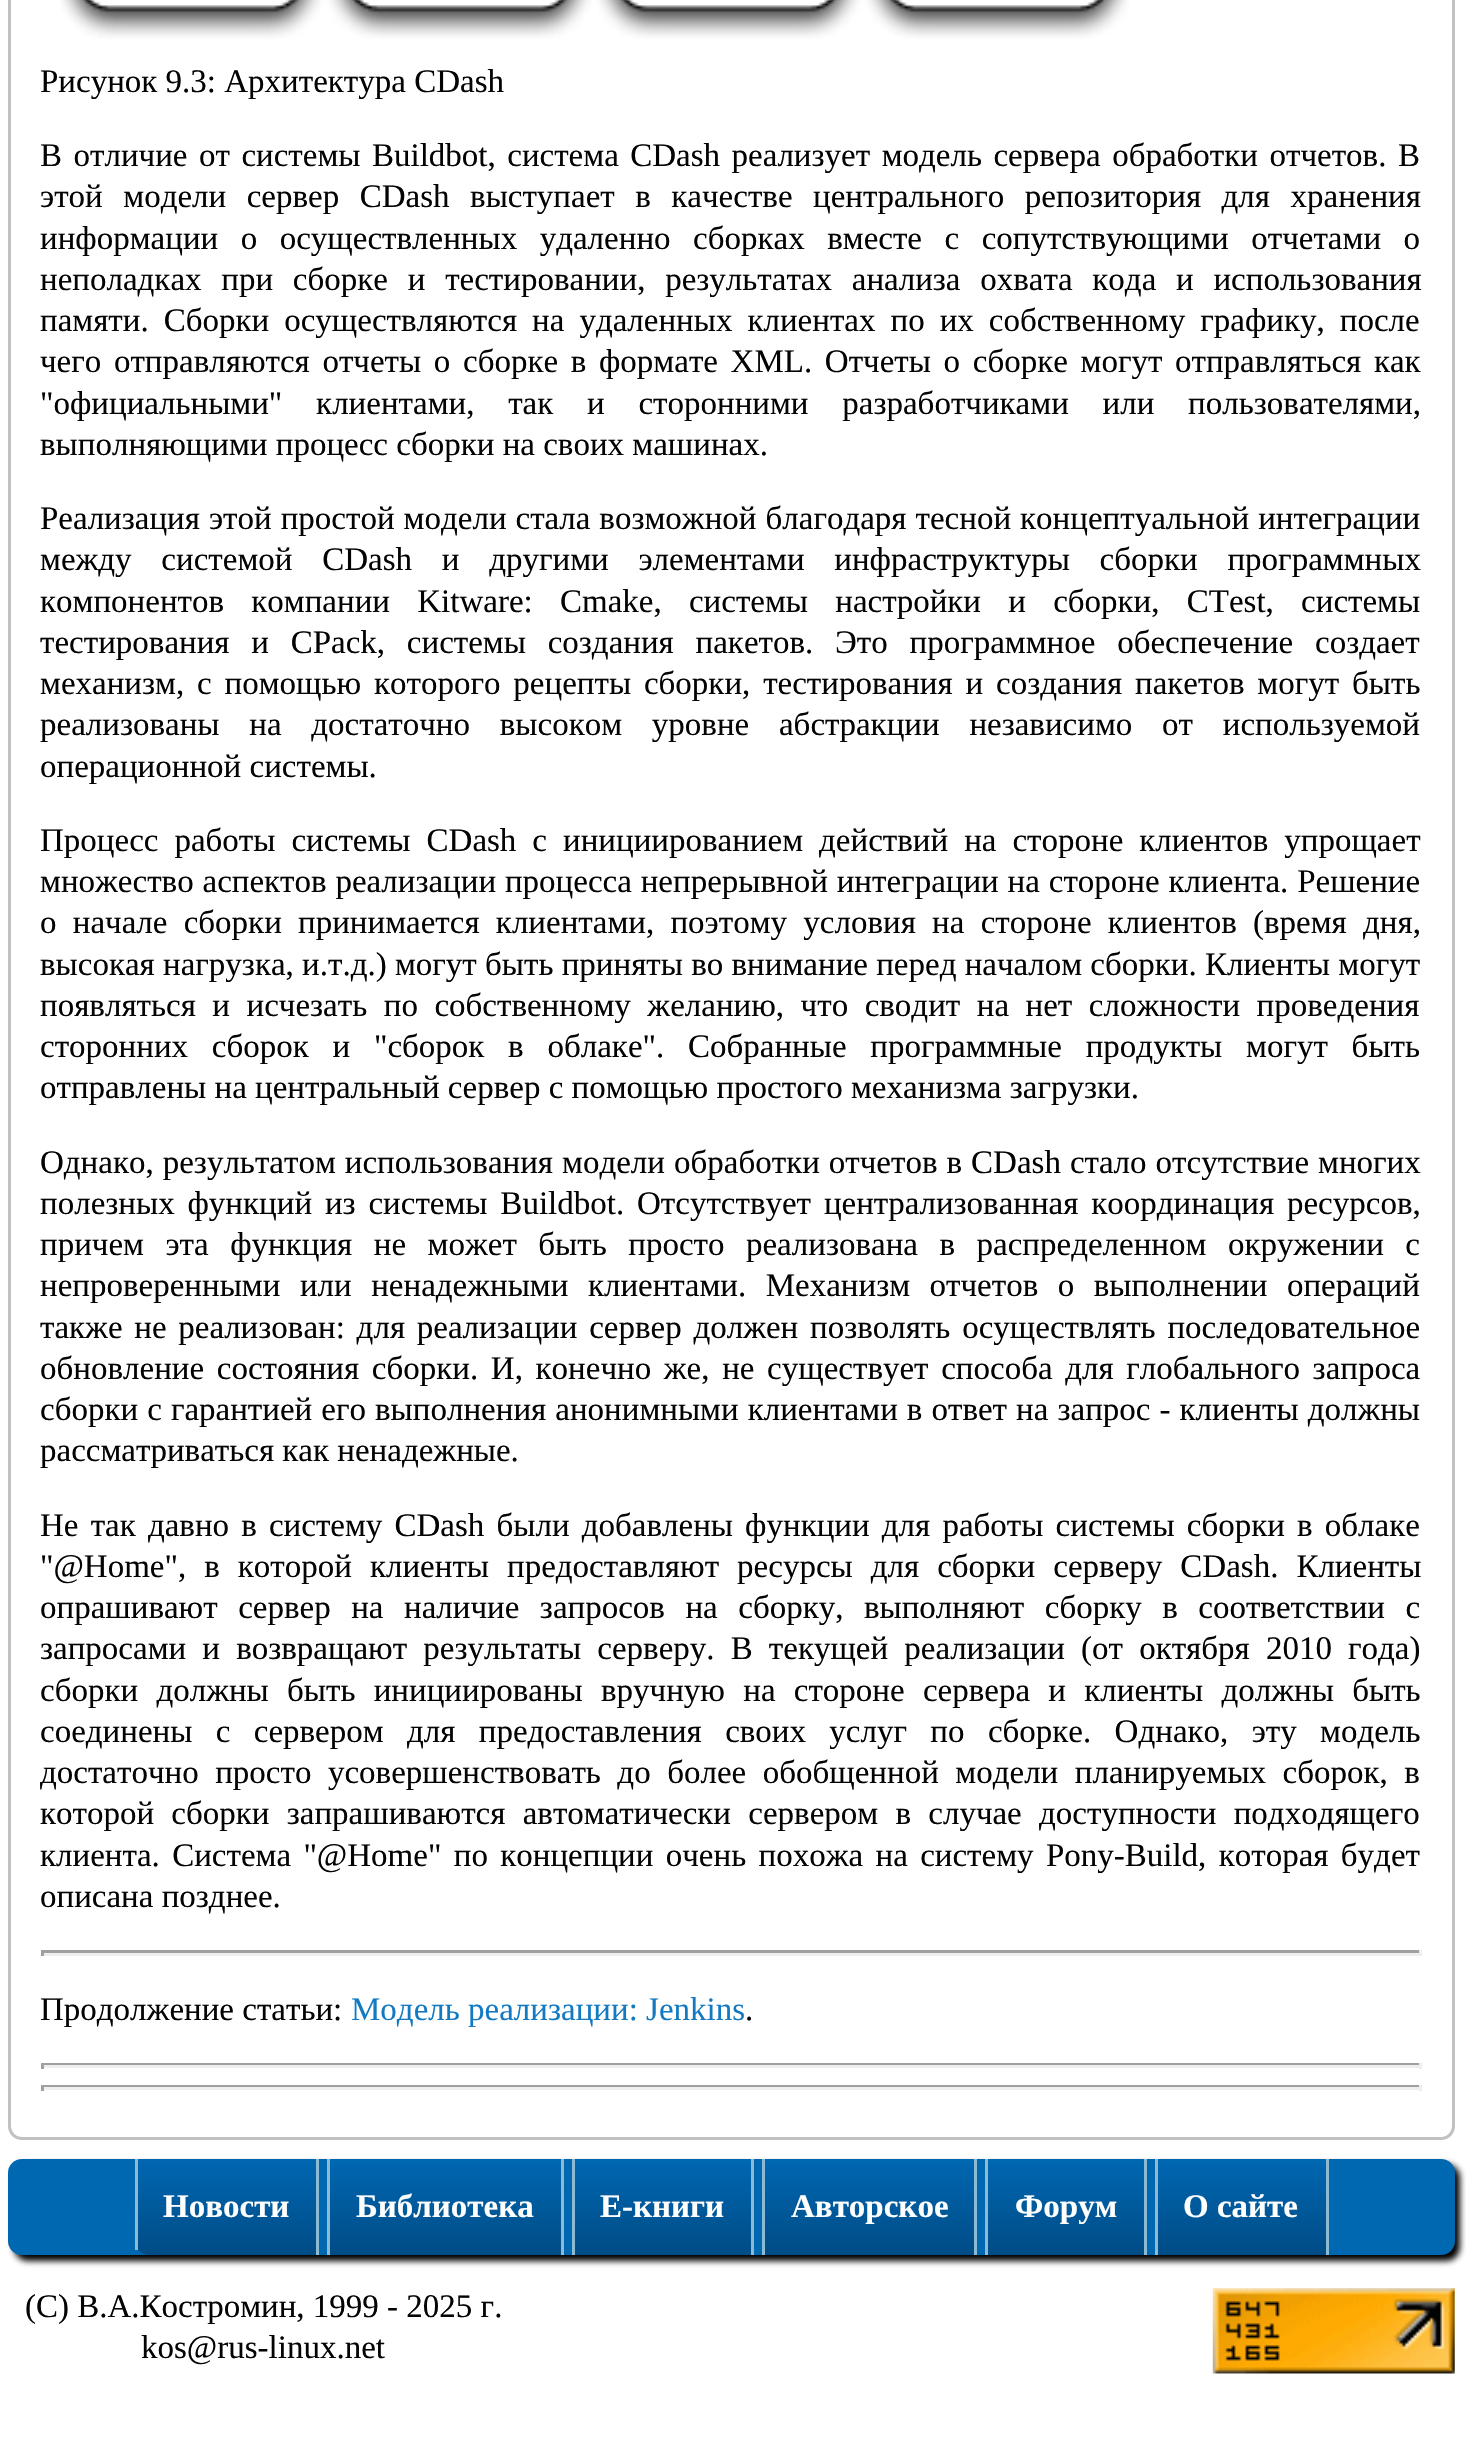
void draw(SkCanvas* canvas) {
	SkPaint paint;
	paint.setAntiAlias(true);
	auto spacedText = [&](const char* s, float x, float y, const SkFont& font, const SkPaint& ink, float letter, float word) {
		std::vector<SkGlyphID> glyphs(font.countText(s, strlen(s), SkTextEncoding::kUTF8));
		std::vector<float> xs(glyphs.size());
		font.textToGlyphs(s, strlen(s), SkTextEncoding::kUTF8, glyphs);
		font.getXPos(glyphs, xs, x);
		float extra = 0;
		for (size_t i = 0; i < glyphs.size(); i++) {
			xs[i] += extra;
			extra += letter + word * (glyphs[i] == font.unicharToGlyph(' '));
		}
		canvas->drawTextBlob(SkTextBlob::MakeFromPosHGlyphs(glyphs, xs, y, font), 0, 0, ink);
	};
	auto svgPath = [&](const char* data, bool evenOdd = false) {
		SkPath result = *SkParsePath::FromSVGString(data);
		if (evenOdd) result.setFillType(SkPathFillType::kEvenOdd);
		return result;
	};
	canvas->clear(0xffffffff);
	paint.setStroke(true);
	paint.setStrokeWidth(3);
	paint.setColor(0xffc1c1c1);
	canvas->drawRoundRect(SkRect::MakeXYWH(9.5, -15.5, 1444, 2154), 12.5, 12.5, paint);
	canvas->drawImageRect(SkImages::DeferredFromEncodedData(SkData::MakeFromFileName("img1.png")), SkRect::MakeXYWH(60, 0, 1069, 39), SkSamplingOptions());
	SkFont f1(fontMgr->matchFamilyStyle("Liberation Serif", SkFontStyle::Normal()), 33);
	f1.setSubpixel(true);
	paint.setStroke(false);
	paint.setColor(0xff030303);
	canvas->drawString("Рисунок 9.3: Архитектура CDash", 40, 92, f1, paint);
	spacedText("В отличие от системы Buildbot, система CDash реализует модель сервера обработки отчетов. В", 40, 166, f1, paint, 0, 3.25);
	spacedText("этой модели сервер CDash выступает в качестве центрального репозитория для хранения", 40, 207, f1, paint, 0, 12.25);
	spacedText("информации о осуществленных удаленно сборках вместе с сопутствующими отчетами о", 40, 249, f1, paint, 0, 14.25);
	spacedText("неполадках при сборке и тестировании, результатах анализа охвата кода и использования", 40, 290, f1, paint, 0, 11.5);
	spacedText("памяти. Сборки осуществляются на удаленных клиентах по их собственному графику, после", 40, 331, f1, paint, 0, 6.75);
	spacedText("чего отправляются отчеты о сборке в формате XML. Отчеты о сборке могут отправляться как", 40, 372, f1, paint, 0, 4.4);
	spacedText("\"официальными\" клиентами, так и сторонними разработчиками или пользователями,", 40, 414, f1, paint, 0, 25.5);
	canvas->drawString("выполняющими процесс сборки на своих машинах.", 40, 455, f1, paint);
	spacedText("Реализация этой простой модели стала возможной благодаря тесной концептуальной интеграции", 40, 529, f1, paint, 0, 0.75);
	spacedText("между системой CDash и другими элементами инфраструктуры сборки программных", 40, 570, f1, paint, 0, 21.5);
	spacedText("компонентов компании Kitware: Cmake, системы настройки и сборки, CTest, системы", 40, 612, f1, paint, 0, 19);
	spacedText("тестирования и CPack, системы создания пакетов. Это программное обеспечение создает", 40, 653, f1, paint, 0, 13.5);
	spacedText("механизм, с помощью которого рецепты сборки, тестирования и создания пакетов могут быть", 40, 694, f1, paint, 0, 4.6);
	spacedText("реализованы на достаточно высоком уровне абстракции независимо от используемой", 40, 735, f1, paint, 0, 21.5);
	canvas->drawString("операционной системы.", 40, 777, f1, paint);
	spacedText("Процесс работы системы CDash с инициированием действий на стороне клиентов упрощает", 40, 851, f1, paint, 0, 7.75);
	spacedText("множество аспектов реализации процесса непрерывной интеграции на стороне клиента. Решение", 40, 892, f1, paint, 0, 0.6);
	spacedText("о начале сборки принимается клиентами, поэтому условия на стороне клиентов (время дня,", 40, 933, f1, paint, 0, 8);
	canvas->drawString("высокая нагрузка, и.т.д.) могут быть приняты во внимание перед началом сборки. Клиенты могут", 40, 975, f1, paint);
	spacedText("появляться и исчезать по собственному желанию, что сводит на нет сложности проведения", 40, 1016, f1, paint, 0, 8.25);
	spacedText("сторонних сборок и \"сборок в облаке\". Собранные программные продукты могут быть", 40, 1057, f1, paint, 0, 15.5);
	canvas->drawString("отправлены на центральный сервер с помощью простого механизма загрузки.", 40, 1098, f1, paint);
	spacedText("Однако, результатом использования модели обработки отчетов в CDash стало отсутствие многих", 40, 1173, f1, paint, 0, 0.75);
	spacedText("полезных функций из системы Buildbot. Отсутствует централизованная координация ресурсов,", 40, 1214, f1, paint, 0, 4.6);
	spacedText("причем эта функция не может быть просто реализована в распределенном окружении с", 40, 1255, f1, paint, 0, 13.25);
	spacedText("непроверенными или ненадежными клиентами. Механизм отчетов о выполнении операций", 40, 1296, f1, paint, 0, 11.25);
	spacedText("также не реализован: для реализации сервер должен позволять осуществлять последовательное", 40, 1338, f1, paint, 0, 3.5);
	spacedText("обновление состояния сборки. И, конечно же, не существует способа для глобального запроса", 40, 1379, f1, paint, 0, 4.4);
	spacedText("сборки с гарантией его выполнения анонимными клиентами в ответ на запрос - клиенты должны", 40, 1420, f1, paint, 0, 0.8);
	canvas->drawString("рассматриваться как ненадежные.", 40, 1461, f1, paint);
	spacedText("Не так давно в систему CDash были добавлены функции для работы системы сборки в облаке", 40, 1536, f1, paint, 0, 3.9);
	spacedText("\"@Home\", в которой клиенты предоставляют ресурсы для сборки серверу CDash. Клиенты", 40, 1577, f1, paint, 0, 9.75);
	spacedText("опрашивают сервер на наличие запросов на сборку, выполняют сборку в соответствии с", 40, 1618, f1, paint, 0, 12.25);
	spacedText("запросами и возвращают результаты серверу. В текущей реализации (от октября 2010 года)", 40, 1659, f1, paint, 0, 7.9);
	spacedText("сборки должны быть инициированы вручную на стороне сервера и клиенты должны быть", 40, 1701, f1, paint, 0, 10);
	spacedText("соединены с сервером для предоставления своих услуг по сборке. Однако, эту модель", 40, 1742, f1, paint, 0, 15.1);
	spacedText("достаточно просто усовершенствовать до более обобщенной модели планируемых сборок, в", 40, 1783, f1, paint, 0, 8.25);
	spacedText("которой сборки запрашиваются автоматически сервером в случае доступности подходящего", 40, 1824, f1, paint, 0, 9);
	spacedText("клиента. Система \"@Home\" по концепции очень похожа на систему Pony-Build, которая будет", 40, 1866, f1, paint, 0, 4.1);
	canvas->drawString("описана позднее.", 40, 1907, f1, paint);
	paint.setColor(0xffa0a0a0);
	canvas->drawRect(SkRect::MakeXYWH(41, 1950, 1381, 3), paint);
	paint.setColor(0xffeeeeee);
	canvas->drawRect(SkRect::MakeXYWH(1419, 1950, 3, 6), paint);
	canvas->drawRect(SkRect::MakeXYWH(41, 1953, 1381, 3), paint);
	paint.setColor(0xffa0a0a0);
	canvas->drawRect(SkRect::MakeXYWH(41, 1950, 3, 6), paint);
	paint.setColor(0xff030303);
	canvas->drawString("Продолжение статьи:", 40, 2020, f1, paint);
	paint.setColor(0xff137ac2);
	canvas->drawString("Модель реализации: Jenkins", 351, 2020, f1, paint);
	paint.setColor(0xff030303);
	canvas->drawString(".", 745, 2020, f1, paint);
	paint.setColor(0xffa0a0a0);
	canvas->drawRect(SkRect::MakeXYWH(41, 2063, 1381, 2), paint);
	paint.setColor(0xffeeeeee);
	canvas->drawRect(SkRect::MakeXYWH(1419, 2063, 3, 6), paint);
	canvas->drawRect(SkRect::MakeXYWH(41, 2065, 1381, 3), paint);
	paint.setColor(0xffa0a0a0);
	canvas->drawRect(SkRect::MakeXYWH(41, 2063, 3, 6), paint);
	canvas->drawRect(SkRect::MakeXYWH(41, 2085, 1381, 2), paint);
	paint.setColor(0xffeeeeee);
	canvas->drawRect(SkRect::MakeXYWH(1419, 2085, 3, 6), paint);
	canvas->drawRect(SkRect::MakeXYWH(41, 2087, 1381, 3), paint);
	paint.setColor(0xffa0a0a0);
	canvas->drawRect(SkRect::MakeXYWH(41, 2085, 3, 6), paint);
	paint.setColor(0xff000000);
	paint.setMaskFilter(SkMaskFilter::MakeBlur(kNormal_SkBlurStyle, 3));
	canvas->drawRoundRect(SkRect::MakeXYWH(14, 2164, 1446, 97), 14, 14, paint);
	paint.setMaskFilter(nullptr);
	paint.setColor(0xff0067b1);
	canvas->drawRoundRect(SkRect::MakeXYWH(8, 2159, 1447, 96), 14, 14, paint);
	{
		const SkColor colors[] = {0xff0067b1, 0xff004c86};
		const float stops[] = {0, 1};
		const SkPoint ends[] = {{227, 2159}, {227, 2255}};
		paint.setShader(SkGradientShader::MakeLinear(ends, colors, stops, 2, SkTileMode::kClamp));
		paint.setAlpha(255);
	}
	canvas->drawPath(svgPath("M135 2159H319V2255H149C141.5 2255 135 2248.5 135 2241Z"), paint);
	paint.setShader(nullptr);
	paint.setColor(0xff8cbad2);
	canvas->drawRect(SkRect::MakeXYWH(316, 2159, 3, 96), paint);
	canvas->drawRect(SkRect::MakeXYWH(135, 2159, 3, 91), paint);
	SkFont f2(fontMgr->matchFamilyStyle("Liberation Serif", SkFontStyle::Bold()), 33);
	f2.setSubpixel(true);
	paint.setColor(0xffffffff);
	canvas->drawString("Новости", 163, 2217, f2, paint);
	{
		const SkColor colors[] = {0xff0067b1, 0xff004c86};
		const float stops[] = {0, 1};
		const SkPoint ends[] = {{446, 2159}, {446, 2255}};
		paint.setShader(SkGradientShader::MakeLinear(ends, colors, stops, 2, SkTileMode::kClamp));
		paint.setAlpha(255);
	}
	canvas->drawRect(SkRect::MakeXYWH(330, 2165, 231, 90), paint);
	paint.setShader(nullptr);
	paint.setColor(0xff8cbad2);
	canvas->drawRect(SkRect::MakeXYWH(561, 2159, 3, 96), paint);
	canvas->drawRect(SkRect::MakeXYWH(327, 2159, 3, 96), paint);
	paint.setColor(0xffffffff);
	canvas->drawString("Библиотека", 356, 2217, f2, paint);
	{
		const SkColor colors[] = {0xff0067b1, 0xff004c86};
		const float stops[] = {0, 1};
		const SkPoint ends[] = {{663, 2159}, {663, 2255}};
		paint.setShader(SkGradientShader::MakeLinear(ends, colors, stops, 2, SkTileMode::kClamp));
		paint.setAlpha(255);
	}
	canvas->drawRect(SkRect::MakeXYWH(575, 2165, 176, 90), paint);
	paint.setShader(nullptr);
	paint.setColor(0xff8cbad2);
	canvas->drawRect(SkRect::MakeXYWH(751, 2159, 3, 96), paint);
	canvas->drawRect(SkRect::MakeXYWH(572, 2159, 3, 96), paint);
	paint.setColor(0xffffffff);
	canvas->drawString("Е-книги", 600, 2217, f2, paint);
	{
		const SkColor colors[] = {0xff0067b1, 0xff004c86};
		const float stops[] = {0, 1};
		const SkPoint ends[] = {{869, 2159}, {869, 2255}};
		paint.setShader(SkGradientShader::MakeLinear(ends, colors, stops, 2, SkTileMode::kClamp));
		paint.setAlpha(255);
	}
	canvas->drawRect(SkRect::MakeXYWH(765, 2165, 209, 90), paint);
	paint.setShader(nullptr);
	paint.setColor(0xff8cbad2);
	canvas->drawRect(SkRect::MakeXYWH(974, 2159, 3, 96), paint);
	canvas->drawRect(SkRect::MakeXYWH(762, 2159, 3, 96), paint);
	paint.setColor(0xffffffff);
	canvas->drawString("Авторское", 791, 2217, f2, paint);
	{
		const SkColor colors[] = {0xff0067b1, 0xff004c86};
		const float stops[] = {0, 1};
		const SkPoint ends[] = {{1066, 2159}, {1066, 2255}};
		paint.setShader(SkGradientShader::MakeLinear(ends, colors, stops, 2, SkTileMode::kClamp));
		paint.setAlpha(255);
	}
	canvas->drawRect(SkRect::MakeXYWH(988, 2165, 156, 90), paint);
	paint.setShader(nullptr);
	paint.setColor(0xff8cbad2);
	canvas->drawRect(SkRect::MakeXYWH(1144, 2159, 3, 96), paint);
	canvas->drawRect(SkRect::MakeXYWH(985, 2159, 3, 96), paint);
	paint.setColor(0xffffffff);
	canvas->drawString("Форум", 1015, 2217, f2, paint);
	{
		const SkColor colors[] = {0xff0067b1, 0xff004c86};
		const float stops[] = {0, 1};
		const SkPoint ends[] = {{1242, 2159}, {1242, 2255}};
		paint.setShader(SkGradientShader::MakeLinear(ends, colors, stops, 2, SkTileMode::kClamp));
		paint.setAlpha(255);
	}
	canvas->drawRect(SkRect::MakeXYWH(1158, 2165, 168, 90), paint);
	paint.setShader(nullptr);
	paint.setColor(0xff8cbad2);
	canvas->drawRect(SkRect::MakeXYWH(1326, 2159, 3, 96), paint);
	canvas->drawRect(SkRect::MakeXYWH(1155, 2159, 3, 96), paint);
	paint.setColor(0xffffffff);
	canvas->drawString("О сайте", 1183, 2217, f2, paint);
	paint.setColor(0xff030303);
	canvas->drawString("(C) В.А.Костромин, 1999 - 2025 г.", 25, 2317, f1, paint);
	canvas->drawString("kos@rus-linux.net", 141, 2358, f1, paint);
	canvas->drawImageRect(SkImages::DeferredFromEncodedData(SkData::MakeFromFileName("img2.png")), SkRect::MakeXYWH(1212, 2288, 243, 86), SkSamplingOptions());
}
